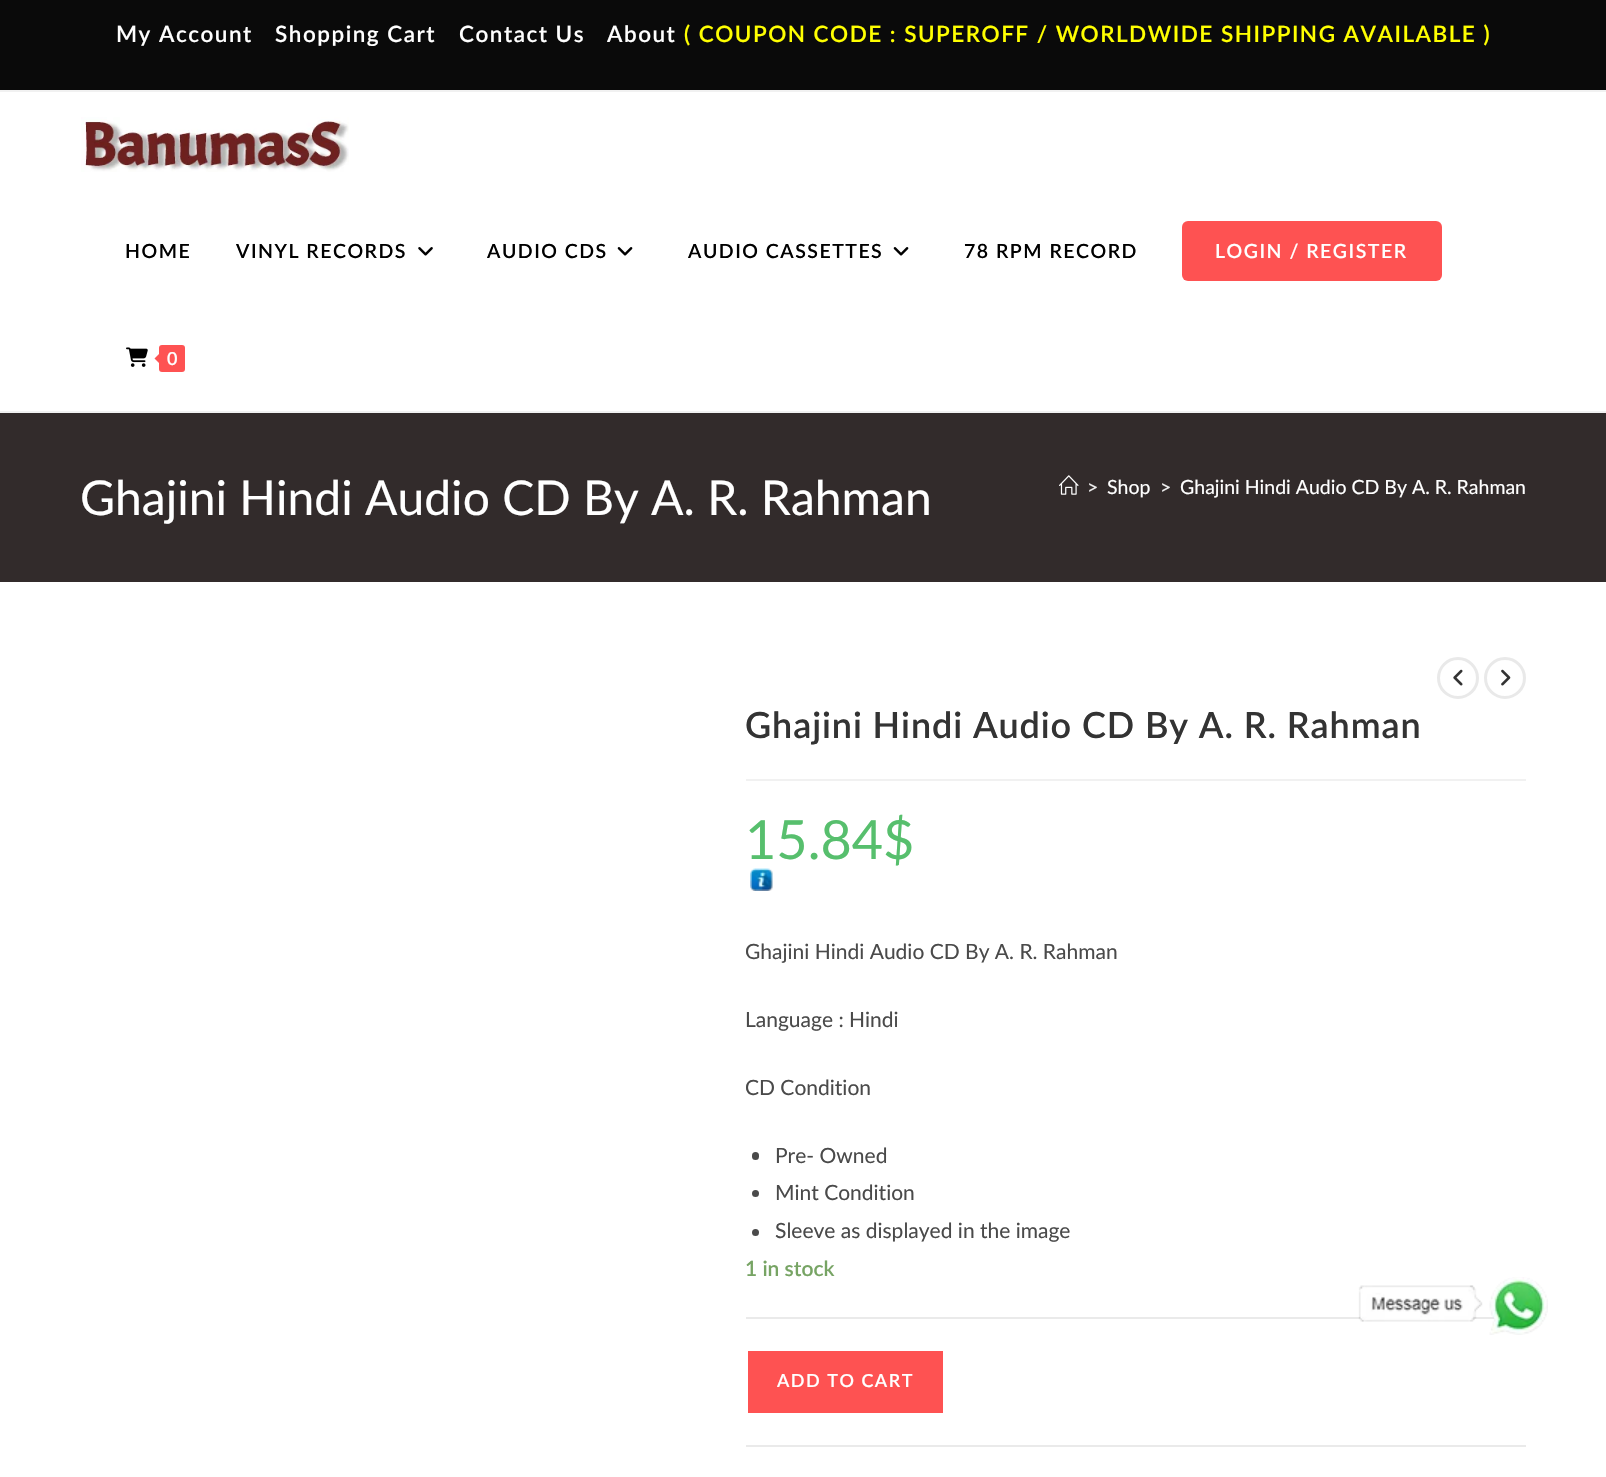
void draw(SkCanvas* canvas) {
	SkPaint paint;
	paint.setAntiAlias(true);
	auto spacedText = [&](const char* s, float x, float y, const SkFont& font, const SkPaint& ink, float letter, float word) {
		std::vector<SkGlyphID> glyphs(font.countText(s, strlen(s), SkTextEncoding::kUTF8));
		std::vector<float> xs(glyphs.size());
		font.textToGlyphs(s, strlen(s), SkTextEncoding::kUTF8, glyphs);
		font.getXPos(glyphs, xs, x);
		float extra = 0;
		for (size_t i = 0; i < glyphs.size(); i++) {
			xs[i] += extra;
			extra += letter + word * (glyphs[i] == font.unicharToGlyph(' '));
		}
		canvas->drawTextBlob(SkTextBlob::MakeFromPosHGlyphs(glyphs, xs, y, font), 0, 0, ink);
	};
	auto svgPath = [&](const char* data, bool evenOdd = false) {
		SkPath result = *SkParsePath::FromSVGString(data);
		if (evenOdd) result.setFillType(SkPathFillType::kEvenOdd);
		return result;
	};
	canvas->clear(0xffffffff);
	paint.setColor(0xff0a0a0a);
	canvas->drawRect(SkRect::MakeXYWH(0, 0, 1606, 90), paint);
	paint.setColor(0xfff1f1f1);
	canvas->drawRect(SkRect::MakeXYWH(0, 90, 1606, 2), paint);
	SkFont f1(fontMgr->matchFamilyStyle("Lato", SkFontStyle(600, SkFontStyle::kNormal_Width, SkFontStyle::kUpright_Slant)), 22.5);
	f1.setSubpixel(true);
	paint.setColor(0xffffffff);
	spacedText("My Account", 116, 42, f1, paint, 1.5, 0);
	spacedText("Shopping Cart", 275, 42, f1, paint, 1.5, 0);
	spacedText("Contact Us", 459, 42, f1, paint, 1.5, 0);
	spacedText("About", 607, 42, f1, paint, 1.5, 0);
	paint.setColor(0xffffff00);
	spacedText("( COUPON CODE : SUPEROFF / WORLDWIDE SHIPPING AVAILABLE )", 684, 42, f1, paint, 1.5, 0);
	paint.setColor(0xfff1f1f1);
	canvas->drawRect(SkRect::MakeXYWH(0, 411, 1606, 2), paint);
	canvas->drawImageRect(SkImages::DeferredFromEncodedData(SkData::MakeFromFileName("img1.png")), SkRect::MakeXYWH(81, 117, 268, 55), SkSamplingOptions());
	SkFont f2(fontMgr->matchFamilyStyle("Lato", SkFontStyle(600, SkFontStyle::kNormal_Width, SkFontStyle::kUpright_Slant)), 19.5);
	f2.setSubpixel(true);
	paint.setColor(0xff000000);
	spacedText("HOME", 125, 258, f2, paint, 1.5, 0);
	spacedText("VINYL RECORDS", 236, 258, f2, paint, 1.5, 0);
	canvas->drawImageRect(SkImages::DeferredFromEncodedData(SkData::MakeFromFileName("img2.png")), SkRect::MakeXYWH(418, 247, 15, 9), SkSamplingOptions());
	spacedText("AUDIO CDS", 487, 258, f2, paint, 1.5, 0);
	canvas->drawImageRect(SkImages::DeferredFromEncodedData(SkData::MakeFromFileName("img3.png")), SkRect::MakeXYWH(617, 247, 16, 9), SkSamplingOptions());
	spacedText("AUDIO CASSETTES", 688, 258, f2, paint, 1.5, 0);
	canvas->drawImageRect(SkImages::DeferredFromEncodedData(SkData::MakeFromFileName("img3.png")), SkRect::MakeXYWH(893, 247, 16, 9), SkSamplingOptions());
	spacedText("78 RPM RECORD", 964, 258, f2, paint, 1.5, 0);
	paint.setColor(0xfffe5252);
	canvas->drawRoundRect(SkRect::MakeXYWH(1182, 221, 260, 60), 6, 6, paint);
	paint.setColor(0xffffffff);
	spacedText("LOGIN / REGISTER", 1215, 258, f2, paint, 1.5, 0);
	canvas->drawImageRect(SkImages::DeferredFromEncodedData(SkData::MakeFromFileName("img4.png")), SkRect::MakeXYWH(126, 347, 22, 20), SkSamplingOptions());
	paint.setColor(0xfffe5252);
	canvas->drawRoundRect(SkRect::MakeXYWH(159, 345, 26, 27), 3, 3, paint);
	canvas->drawPath(svgPath("M162 351V366L154.5 358.5Z"), paint);
	SkFont f3(fontMgr->matchFamilyStyle("Lato", SkFontStyle(600, SkFontStyle::kNormal_Width, SkFontStyle::kUpright_Slant)), 18);
	f3.setSubpixel(true);
	paint.setColor(0xffffffff);
	canvas->drawString("0", 167, 365, f3, paint);
	paint.setColor(0xff322b2b);
	canvas->drawRect(SkRect::MakeXYWH(0, 413, 1606, 169), paint);
	SkFont f4(fontMgr->matchFamilyStyle("Lato", SkFontStyle::Normal()), 48);
	f4.setSubpixel(true);
	paint.setColor(0xffffffff);
	canvas->drawString("Ghajini Hindi Audio CD By A. R. Rahman", 80, 515, f4, paint);
	canvas->drawImageRect(SkImages::DeferredFromEncodedData(SkData::MakeFromFileName("img5.png")), SkRect::MakeXYWH(1059, 475, 20, 20), SkSamplingOptions());
	SkFont f5(fontMgr->matchFamilyStyle("Lato", SkFontStyle::Normal()), 19.5);
	f5.setSubpixel(true);
	paint.setColor(0xffefefef);
	canvas->drawString(">", 1087, 494, f5, paint);
	paint.setColor(0xffffffff);
	canvas->drawString("Shop", 1107, 494, f5, paint);
	paint.setColor(0xffefefef);
	canvas->drawString(">", 1160, 494, f5, paint);
	paint.setColor(0xffffffff);
	canvas->drawString("Ghajini Hindi Audio CD By A. R. Rahman", 1180, 494, f5, paint);
	paint.setStroke(true);
	paint.setStrokeWidth(3);
	paint.setColor(0xffe9e9e9);
	canvas->drawCircle(1458, 678, 19.5, paint);
	canvas->drawImageRect(SkImages::DeferredFromEncodedData(SkData::MakeFromFileName("img6.png")), SkRect::MakeXYWH(1453, 669, 10, 17), SkSamplingOptions());
	canvas->drawCircle(1505, 678, 19.5, paint);
	canvas->drawImageRect(SkImages::DeferredFromEncodedData(SkData::MakeFromFileName("img7.png")), SkRect::MakeXYWH(1501, 669, 10, 17), SkSamplingOptions());
	paint.setStroke(false);
	paint.setColor(0xfff1f1f1);
	canvas->drawRect(SkRect::MakeXYWH(746, 779, 780, 2), paint);
	SkFont f6(fontMgr->matchFamilyStyle("Lato", SkFontStyle(600, SkFontStyle::kNormal_Width, SkFontStyle::kUpright_Slant)), 36);
	f6.setSubpixel(true);
	paint.setColor(0xff333333);
	spacedText("Ghajini Hindi Audio CD By A. R. Rahman", 745, 738, f6, paint, 0.9, 0);
	SkFont f7(fontMgr->matchFamilyStyle("Lato", SkFontStyle::Normal()), 54);
	f7.setSubpixel(true);
	paint.setColor(0xff57bf6d);
	canvas->drawString("15.84$", 745, 859, f7, paint);
	canvas->drawImageRect(SkImages::DeferredFromEncodedData(SkData::MakeFromFileName("img8.png")), SkRect::MakeXYWH(750, 868, 23, 23), SkSamplingOptions());
	SkFont f8(fontMgr->matchFamilyStyle("Lato", SkFontStyle::Normal()), 21);
	f8.setSubpixel(true);
	paint.setColor(0xff4a4a4a);
	canvas->drawString("Ghajini Hindi Audio CD By A. R. Rahman", 745, 959, f8, paint);
	canvas->drawString("Language : Hindi", 745, 1027, f8, paint);
	canvas->drawString("CD Condition", 745, 1095, f8, paint);
	canvas->drawRoundRect(SkRect::MakeXYWH(752, 1152, 7, 8), 3.5, 3.5, paint);
	canvas->drawString("Pre- Owned", 775, 1163, f8, paint);
	canvas->drawCircle(755.5, 1193.5, 3.5, paint);
	canvas->drawString("Mint Condition", 775, 1200, f8, paint);
	canvas->drawCircle(755.5, 1232.5, 3.5, paint);
	canvas->drawString("Sleeve as displayed in the image", 775, 1238, f8, paint);
	SkFont f9(fontMgr->matchFamilyStyle("Lato", SkFontStyle(600, SkFontStyle::kNormal_Width, SkFontStyle::kUpright_Slant)), 21);
	f9.setSubpixel(true);
	paint.setColor(0xff77a464);
	canvas->drawString("1 in stock", 745, 1276, f9, paint);
	paint.setColor(0xffeaeaea);
	canvas->drawRect(SkRect::MakeXYWH(746, 1317, 750, 2), paint);
	canvas->drawRect(SkRect::MakeXYWH(746, 1445, 780, 2), paint);
	paint.setColor(0xfffe5252);
	canvas->drawRect(SkRect::MakeXYWH(748, 1351, 195, 62), paint);
	paint.setColor(0xffffffff);
	spacedText("ADD TO CART", 777, 1387, f3, paint, 1.5, 0);
	canvas->drawImageRect(SkImages::DeferredFromEncodedData(SkData::MakeFromFileName("img9.png")), SkRect::MakeXYWH(1358, 1277, 190, 58), SkSamplingOptions());
}
